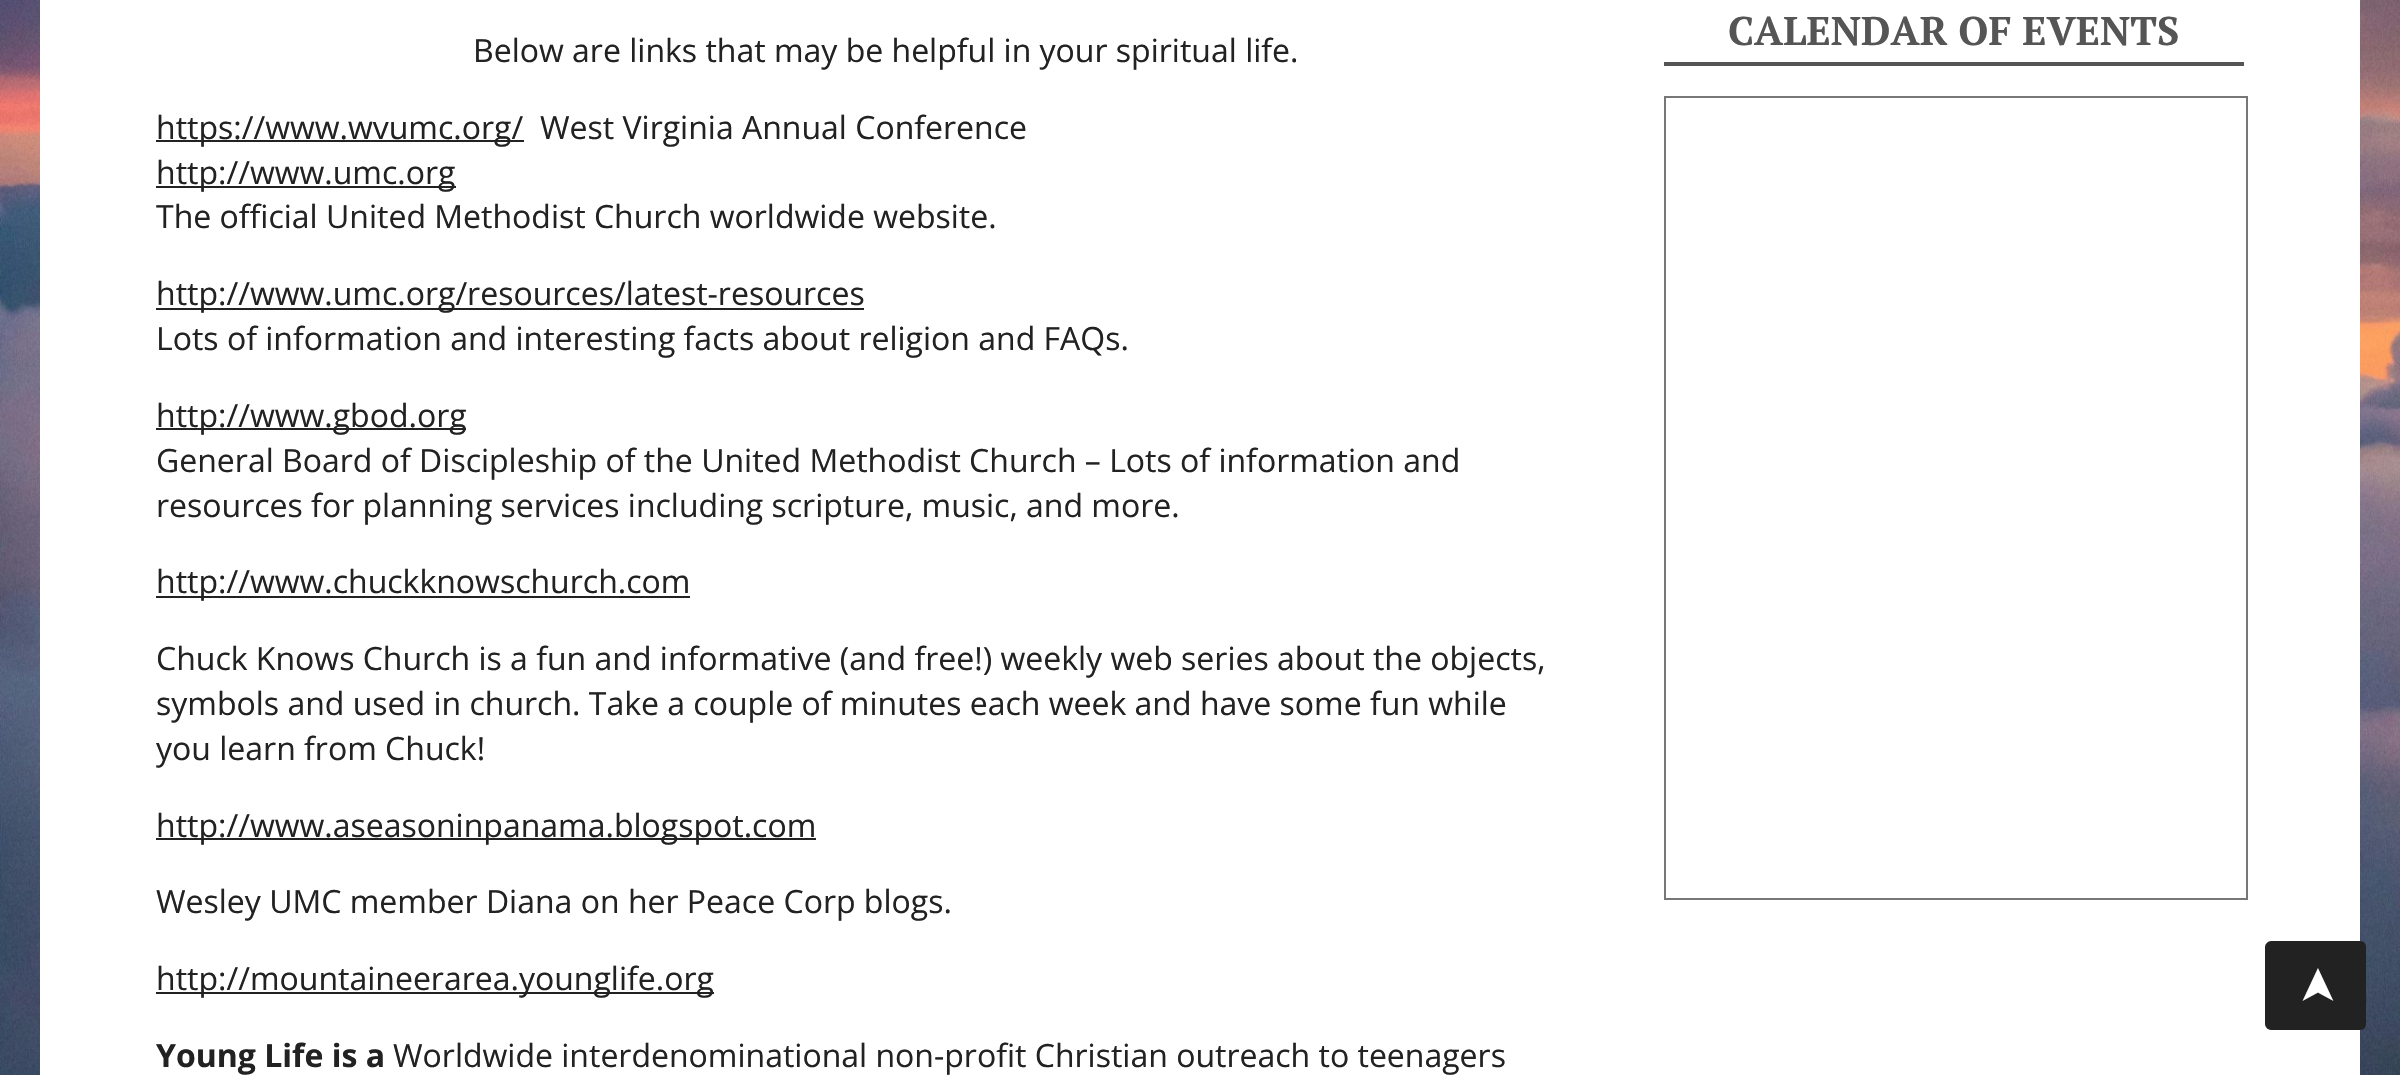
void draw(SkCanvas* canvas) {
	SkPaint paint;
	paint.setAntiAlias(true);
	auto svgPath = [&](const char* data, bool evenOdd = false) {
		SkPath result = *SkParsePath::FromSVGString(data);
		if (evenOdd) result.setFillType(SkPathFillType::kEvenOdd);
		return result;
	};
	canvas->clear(0xffffffff);
	canvas->drawImageRect(SkImages::DeferredFromEncodedData(SkData::MakeFromFileName("img1.png")), SkRect::MakeXYWH(0, 0, 2400, 1075), SkSamplingOptions());
	paint.setColor(0xffffffff);
	canvas->drawRect(SkRect::MakeXYWH(40, 0, 2320, 1075), paint);
	paint.setColor(0xff555555);
	canvas->drawRect(SkRect::MakeXYWH(1664, 62, 580, 4), paint);
	SkFont f1(fontMgr->matchFamilyStyle("PT Serif", SkFontStyle::Bold()), 40);
	f1.setSubpixel(true);
	canvas->drawString("CALENDAR OF EVENTS", 1728, 45, f1, paint);
	paint.setStroke(true);
	paint.setStrokeWidth(2);
	paint.setColor(0xff777777);
	canvas->drawRect(SkRect::MakeXYWH(1665, 97, 582, 802), paint);
	SkFont f2(fontMgr->matchFamilyStyle("Open Sans", SkFontStyle::Normal()), 32);
	f2.setSubpixel(true);
	paint.setStroke(false);
	paint.setColor(0xff222222);
	canvas->drawString("Below are links that may be helpful in your spiritual life.", 473, 62, f2, paint);
	canvas->drawRect(SkRect::MakeXYWH(156, 140, 368, 2), paint);
	canvas->drawString("https://www.wvumc.org/", 156, 139, f2, paint);
	canvas->drawString("West Virginia Annual Conference", 540, 139, f2, paint);
	canvas->drawRect(SkRect::MakeXYWH(156, 186, 300, 2), paint);
	canvas->drawString("http://www.umc.org", 156, 184, f2, paint);
	canvas->drawString("The official United Methodist Church worldwide website.", 156, 228, f2, paint);
	canvas->drawRect(SkRect::MakeXYWH(156, 308, 708, 2), paint);
	canvas->drawString("http://www.umc.org/resources/latest-resources", 156, 305, f2, paint);
	canvas->drawString("Lots of information and interesting facts about religion and FAQs.", 156, 350, f2, paint);
	canvas->drawRect(SkRect::MakeXYWH(156, 428, 310, 2), paint);
	canvas->drawString("http://www.gbod.org", 156, 427, f2, paint);
	canvas->drawString("General Board of Discipleship of the United Methodist Church – Lots of information and", 156, 472, f2, paint);
	canvas->drawString("resources for planning services including scripture, music, and more.", 156, 517, f2, paint);
	canvas->drawRect(SkRect::MakeXYWH(156, 596, 534, 2), paint);
	canvas->drawString("http://www.chuckknowschurch.com", 156, 593, f2, paint);
	canvas->drawString("Chuck Knows Church is a fun and informative (and free!) weekly web series about the objects,", 156, 670, f2, paint);
	canvas->drawString("symbols and used in church. Take a couple of minutes each week and have some fun while", 156, 715, f2, paint);
	canvas->drawString("you learn from Chuck!", 156, 760, f2, paint);
	canvas->drawRect(SkRect::MakeXYWH(156, 838, 660, 2), paint);
	canvas->drawString("http://www.aseasoninpanama.blogspot.com", 156, 837, f2, paint);
	canvas->drawString("Wesley UMC member Diana on her Peace Corp blogs.", 156, 913, f2, paint);
	canvas->drawRect(SkRect::MakeXYWH(156, 992, 558, 2), paint);
	canvas->drawString("http://mountaineerarea.younglife.org", 156, 990, f2, paint);
	SkFont f3(fontMgr->matchFamilyStyle("Open Sans", SkFontStyle::Bold()), 32);
	f3.setSubpixel(true);
	canvas->drawString("Young Life is a", 156, 1067, f3, paint);
	canvas->drawString("Worldwide interdenominational non-profit Christian outreach to teenagers", 393, 1067, f2, paint);
	canvas->drawPath(svgPath("M2265 1024V947C2265 944 2268 941 2271 941H2360C2364 941 2366 944 2366 947V1024C2366 1027 2364 1030 2360 1030H2271C2268 1030 2265 1027 2265 1024Z"), paint);
	SkFont f4(fontMgr->matchFamilyStyle("DejaVu Sans", SkFontStyle::Normal()), 48);
	f4.setSubpixel(true);
	paint.setColor(0xffffffff);
	canvas->save();
	canvas->rotate(-90, 2333, 1006);
	canvas->drawString("➤", 2333, 1006, f4, paint);
	canvas->restore();
}
